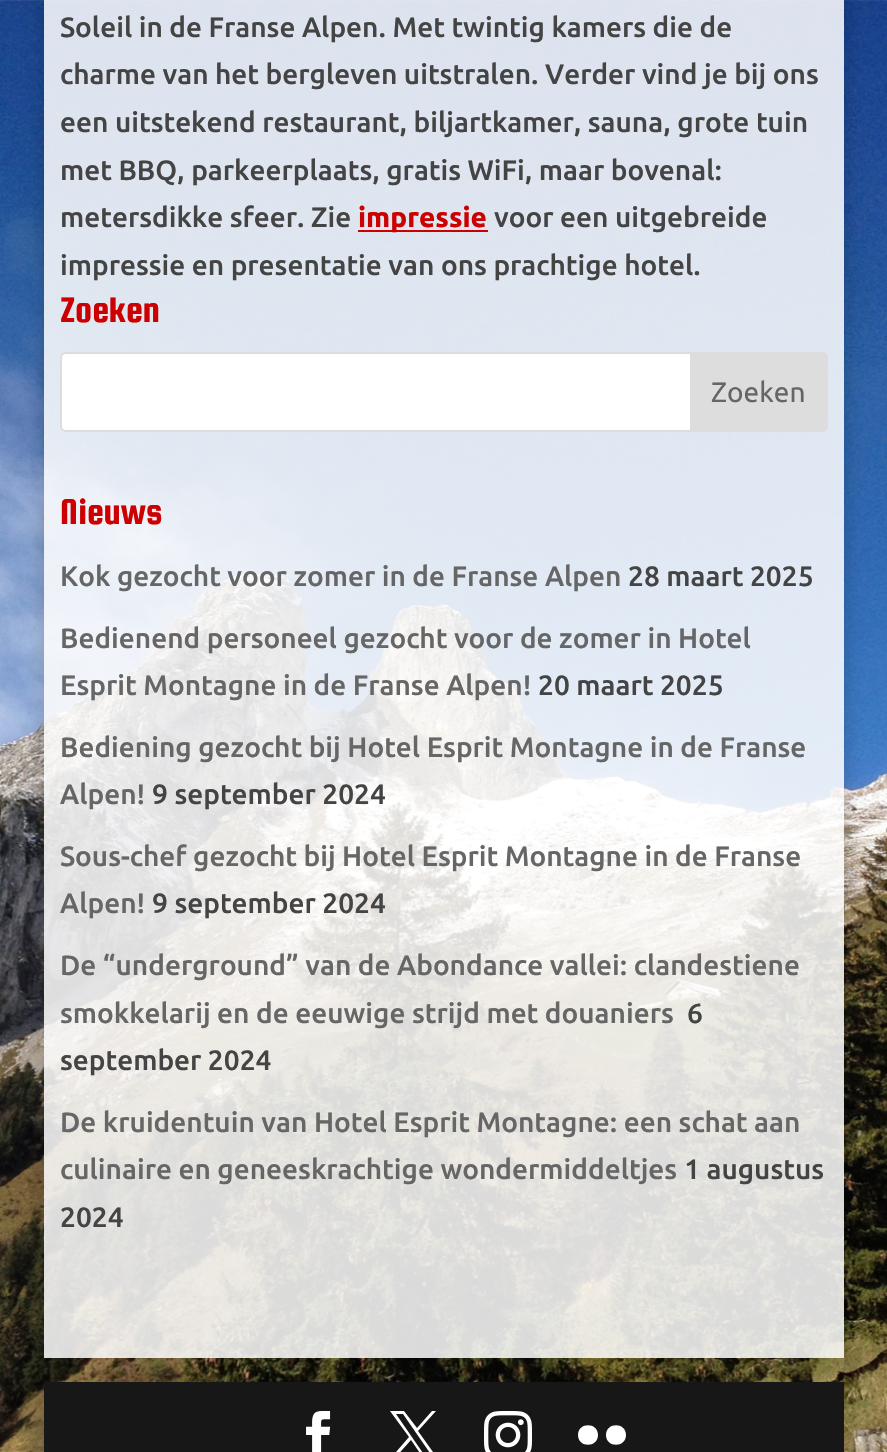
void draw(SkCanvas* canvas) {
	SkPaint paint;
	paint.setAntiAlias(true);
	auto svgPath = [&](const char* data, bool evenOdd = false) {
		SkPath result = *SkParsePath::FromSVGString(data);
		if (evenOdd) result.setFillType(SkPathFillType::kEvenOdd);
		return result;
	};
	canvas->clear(0xffffffff);
	canvas->drawImageRect(SkImages::DeferredFromEncodedData(SkData::MakeFromFileName("img1.png")), SkRect::MakeXYWH(0, 0, 887, 1452), SkSamplingOptions());
	canvas->save();
	canvas->clipPath(svgPath("M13 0H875V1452H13ZM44-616H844V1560H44Z", true), true);
	paint.setColor(0x33000000);
	paint.setMaskFilter(SkMaskFilter::MakeBlur(kNormal_SkBlurStyle, 10));
	canvas->drawRect(SkRect::MakeXYWH(44, -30, 800, 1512), paint);
	paint.setMaskFilter(nullptr);
	canvas->restore();
	paint.setColor(0xd9ffffff);
	canvas->drawRect(SkRect::MakeXYWH(44, 0, 800, 1358), paint);
	SkFont f1(fontMgr->matchFamilyStyle("Ubuntu", SkFontStyle(500, SkFontStyle::kNormal_Width, SkFontStyle::kUpright_Slant)), 28);
	f1.setSubpixel(true);
	paint.setColor(0xff444444);
	canvas->drawString("Soleil in de Franse Alpen. Met twintig kamers die de", 60, 37, f1, paint);
	canvas->drawString("charme van het bergleven uitstralen. Verder vind je bij ons", 60, 84, f1, paint);
	canvas->drawString("een uitstekend restaurant, biljartkamer, sauna, grote tuin", 60, 132, f1, paint);
	canvas->drawString("met BBQ, parkeerplaats, gratis WiFi, maar bovenal:", 60, 180, f1, paint);
	canvas->drawString("metersdikke sfeer. Zie", 60, 227, f1, paint);
	paint.setColor(0xffcc0000);
	canvas->drawRect(SkRect::MakeXYWH(358, 230, 130, 2), paint);
	SkFont f2(fontMgr->matchFamilyStyle("Ubuntu", SkFontStyle::Bold()), 28);
	f2.setSubpixel(true);
	canvas->drawString("impressie", 358, 227, f2, paint);
	paint.setColor(0xff444444);
	canvas->drawString("voor een uitgebreide", 494, 227, f1, paint);
	canvas->drawString("impressie en presentatie van ons prachtige hotel.", 60, 275, f1, paint);
	SkFont f3(fontMgr->matchFamilyStyle("Squada One", SkFontStyle::Normal()), 38);
	f3.setSubpixel(true);
	paint.setColor(0xffcc0000);
	canvas->drawString("Zoeken", 60, 322, f3, paint);
	paint.setColor(0xffffffff);
	canvas->drawRoundRect(SkRect::MakeXYWH(61, 353, 766, 78), 5, 5, paint);
	paint.setStroke(true);
	paint.setStrokeWidth(2);
	paint.setColor(0xffdddddd);
	canvas->drawRoundRect(SkRect::MakeXYWH(61, 353, 766, 78), 5, 5, paint);
	paint.setStroke(false);
	canvas->drawPath(svgPath("M691 353H822C825 353 827 355 827 358V426C827 429 825 431 822 431H691Z"), paint);
	paint.setStroke(true);
	canvas->drawPath(svgPath("M691 353H822C825 353 827 355 827 358V426C827 429 825 431 822 431H691Z"), paint);
	SkFont f4(fontMgr->matchFamilyStyle("Ubuntu", SkFontStyle::Normal()), 28);
	f4.setSubpixel(true);
	paint.setStroke(false);
	paint.setColor(0xff666666);
	canvas->drawString("Zoeken", 711, 402, f4, paint);
	paint.setColor(0xffcc0000);
	canvas->drawString("Nieuws", 60, 524, f3, paint);
	paint.setColor(0xff666666);
	canvas->drawString("Kok gezocht voor zomer in de Franse Alpen", 60, 586, f1, paint);
	paint.setColor(0xff444444);
	canvas->drawString("28 maart 2025", 628, 586, f1, paint);
	paint.setColor(0xff666666);
	canvas->drawString("Bedienend personeel gezocht voor de zomer in Hotel", 60, 648, f1, paint);
	canvas->drawString("Esprit Montagne in de Franse Alpen!", 60, 695, f1, paint);
	paint.setColor(0xff444444);
	canvas->drawString("20 maart 2025", 538, 695, f1, paint);
	paint.setColor(0xff666666);
	canvas->drawString("Bediening gezocht bij Hotel Esprit Montagne in de Franse", 60, 757, f1, paint);
	canvas->drawString("Alpen!", 60, 804, f1, paint);
	paint.setColor(0xff444444);
	canvas->drawString("9 september 2024", 152, 804, f1, paint);
	paint.setColor(0xff666666);
	canvas->drawString("Sous-chef gezocht bij Hotel Esprit Montagne in de Franse", 60, 866, f1, paint);
	canvas->drawString("Alpen!", 60, 913, f1, paint);
	paint.setColor(0xff444444);
	canvas->drawString("9 september 2024", 152, 913, f1, paint);
	paint.setColor(0xff666666);
	canvas->drawString("De “underground” van de Abondance vallei: clandestiene", 60, 975, f1, paint);
	canvas->drawString("smokkelarij en de eeuwige strijd met douaniers", 60, 1023, f1, paint);
	paint.setColor(0xff444444);
	canvas->drawString("6", 687, 1023, f1, paint);
	canvas->drawString("september 2024", 60, 1070, f1, paint);
	paint.setColor(0xff666666);
	canvas->drawString("De kruidentuin van Hotel Esprit Montagne: een schat aan", 60, 1132, f1, paint);
	canvas->drawString("culinaire en geneeskrachtige wondermiddeltjes", 60, 1179, f1, paint);
	paint.setColor(0xff444444);
	canvas->drawString("1 augustus", 684, 1179, f1, paint);
	canvas->drawString("2024", 60, 1227, f1, paint);
	paint.setColor(0xff171717);
	canvas->drawRect(SkRect::MakeXYWH(44, 1382, 800, 70), paint);
	canvas->drawImageRect(SkImages::DeferredFromEncodedData(SkData::MakeFromFileName("img2.png")), SkRect::MakeXYWH(306, 1411, 25, 41), SkSamplingOptions());
	paint.setColor(0xffffffff);
	canvas->drawPath(svgPath("M390 1411L409 1437L390 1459H394L411 1440L424 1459H438L418 1431L436 1411H432L417 1428L404 1411ZM396 1414H403L432 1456H425Z"), paint);
	canvas->drawImageRect(SkImages::DeferredFromEncodedData(SkData::MakeFromFileName("img3.png")), SkRect::MakeXYWH(484, 1411, 48, 41), SkSamplingOptions());
	canvas->drawPath(svgPath("M578 1435C578 1448 598 1448 598 1435C598 1422 578 1422 578 1435ZM606 1435C606 1448 626 1448 626 1435C626 1422 606 1422 606 1435Z"), paint);
}
